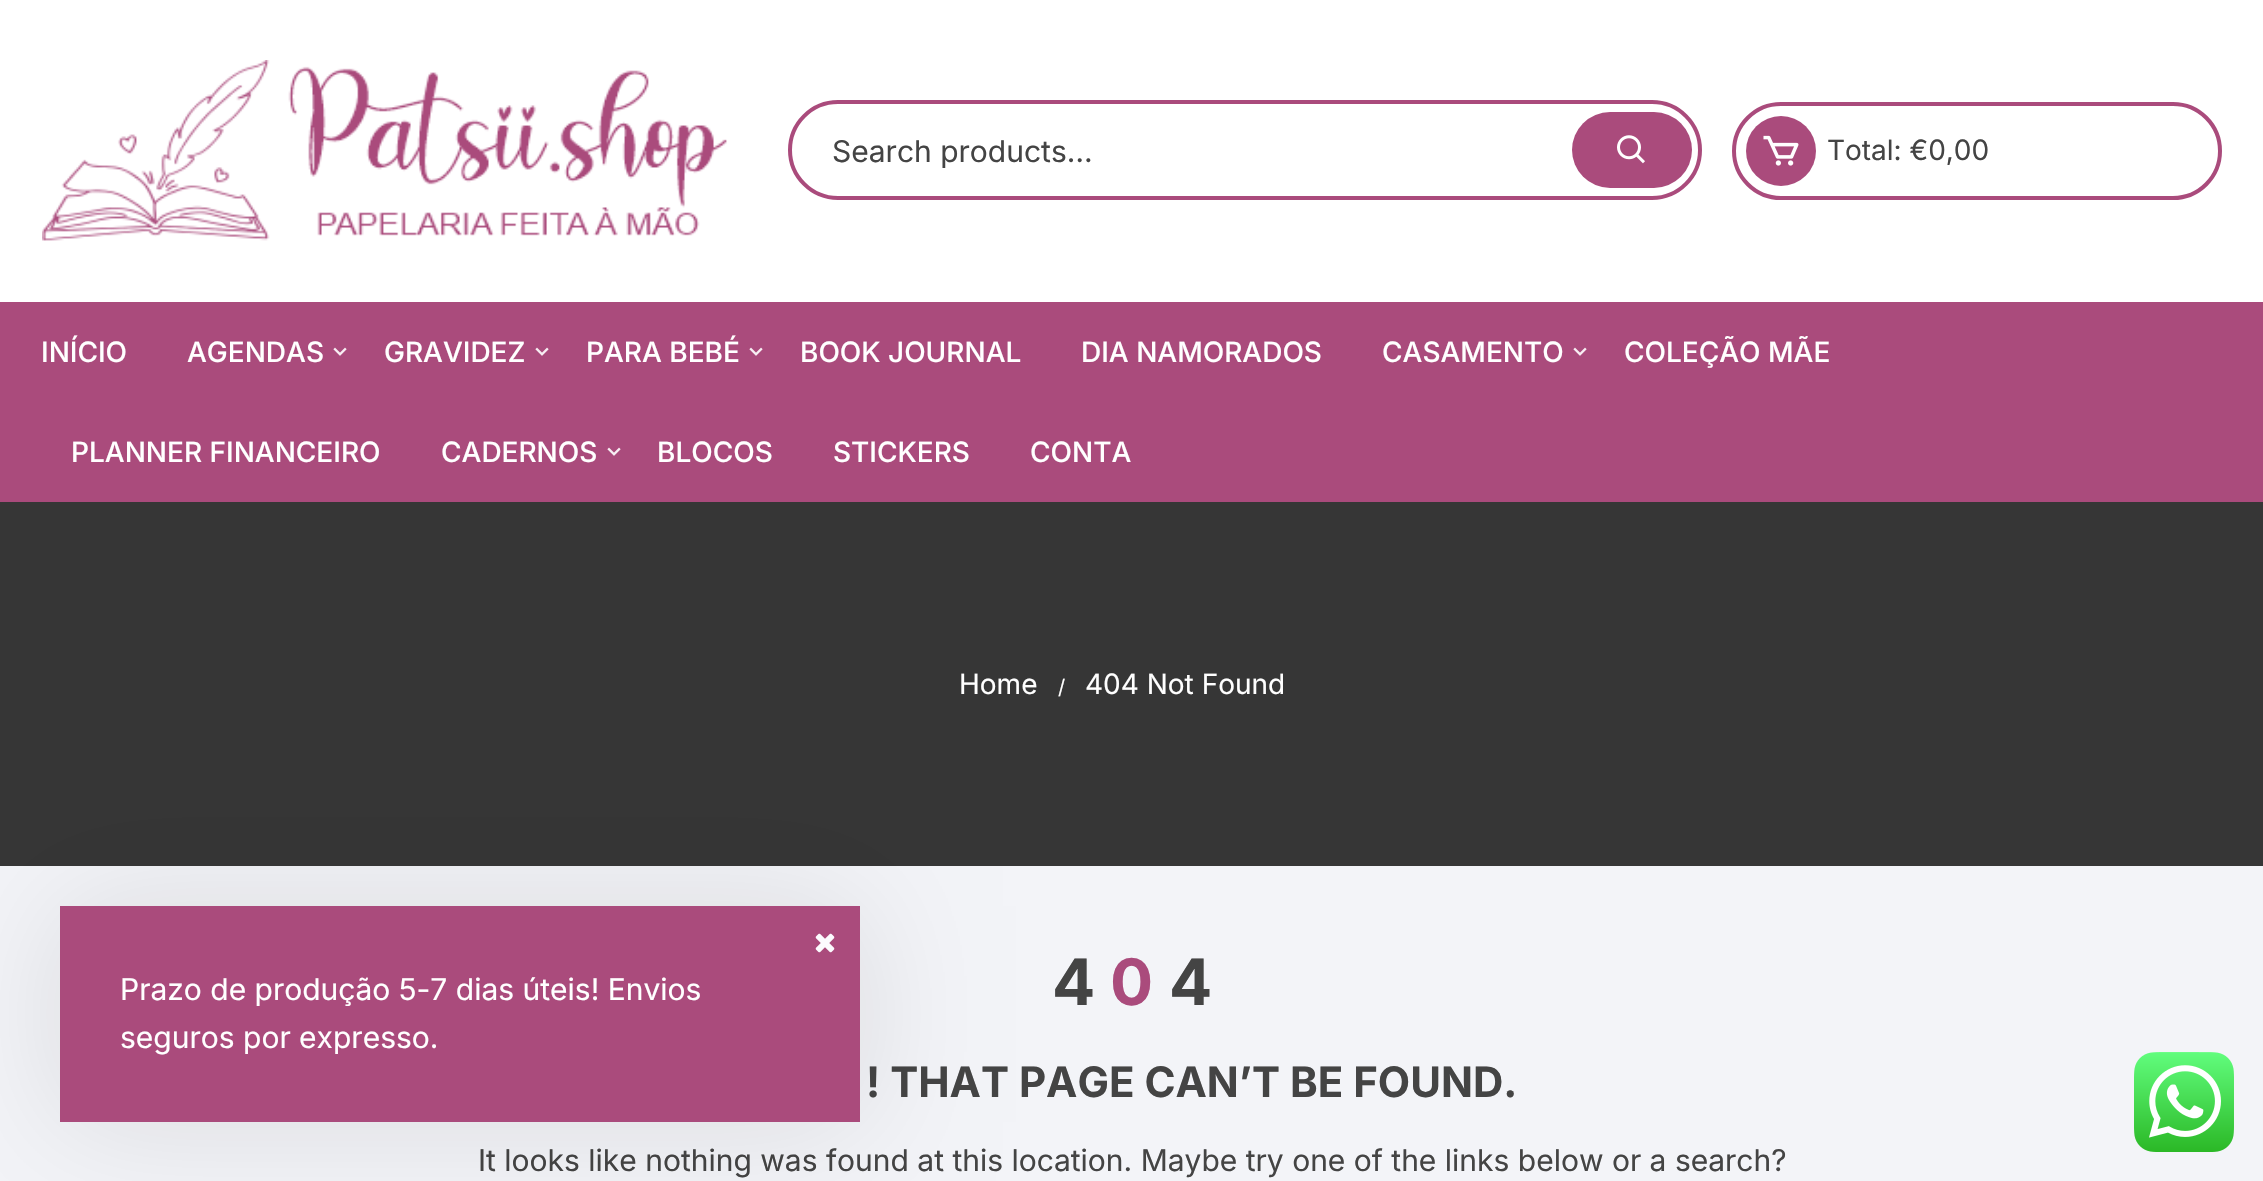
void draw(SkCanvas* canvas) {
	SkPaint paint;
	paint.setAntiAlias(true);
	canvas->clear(0xfff3f4f8);
	paint.setColor(0xffffffff);
	canvas->drawRect(SkRect::MakeXYWH(0, 0, 2263, 302), paint);
	canvas->drawImageRect(SkImages::DeferredFromEncodedData(SkData::MakeFromFileName("img1.png")), SkRect::MakeXYWH(42, 60, 685, 181), SkSamplingOptions());
	paint.setStroke(true);
	paint.setStrokeWidth(4);
	paint.setColor(0xffaa4b7c);
	canvas->drawRoundRect(SkRect::MakeXYWH(790, 102, 910, 96), 48, 48, paint);
	SkFont f1(fontMgr->matchFamilyStyle("Inter", SkFontStyle::Normal()), 30);
	f1.setSubpixel(true);
	paint.setStroke(false);
	paint.setColor(0xff444444);
	canvas->drawString("Search products…", 832, 162, f1, paint);
	paint.setColor(0xffaa4b7c);
	canvas->drawRoundRect(SkRect::MakeXYWH(1572, 112, 120, 76), 38, 38, paint);
	canvas->drawImageRect(SkImages::DeferredFromEncodedData(SkData::MakeFromFileName("img2.png")), SkRect::MakeXYWH(1617, 135, 28, 29), SkSamplingOptions());
	paint.setStroke(true);
	canvas->drawRoundRect(SkRect::MakeXYWH(1734, 104, 486, 94), 47, 47, paint);
	paint.setStroke(false);
	canvas->drawCircle(1781, 151, 35, paint);
	canvas->drawImageRect(SkImages::DeferredFromEncodedData(SkData::MakeFromFileName("img3.png")), SkRect::MakeXYWH(1763, 135, 36, 31), SkSamplingOptions());
	SkFont f2(fontMgr->matchFamilyStyle("Inter", SkFontStyle::Normal()), 28);
	f2.setSubpixel(true);
	paint.setColor(0xff444444);
	canvas->drawString("Total: €0,00", 1827, 160, f2, paint);
	paint.setColor(0xffaa4b7c);
	canvas->drawRect(SkRect::MakeXYWH(0, 302, 2263, 200), paint);
	SkFont f3(fontMgr->matchFamilyStyle("Inter", SkFontStyle(500, SkFontStyle::kNormal_Width, SkFontStyle::kUpright_Slant)), 28);
	f3.setSubpixel(true);
	paint.setColor(0xffffffff);
	canvas->drawString("INÍCIO", 41, 362, f3, paint);
	canvas->drawString("AGENDAS", 187, 362, f3, paint);
	canvas->drawImageRect(SkImages::DeferredFromEncodedData(SkData::MakeFromFileName("img4.png")), SkRect::MakeXYWH(333, 347, 14, 9), SkSamplingOptions());
	canvas->drawString("GRAVIDEZ", 384, 362, f3, paint);
	canvas->drawImageRect(SkImages::DeferredFromEncodedData(SkData::MakeFromFileName("img4.png")), SkRect::MakeXYWH(535, 347, 14, 9), SkSamplingOptions());
	canvas->drawString("PARA BEBÉ", 586, 362, f3, paint);
	canvas->drawImageRect(SkImages::DeferredFromEncodedData(SkData::MakeFromFileName("img4.png")), SkRect::MakeXYWH(749, 347, 14, 9), SkSamplingOptions());
	canvas->drawString("BOOK JOURNAL", 800, 362, f3, paint);
	canvas->drawString("DIA NAMORADOS", 1081, 362, f3, paint);
	canvas->drawString("CASAMENTO", 1382, 362, f3, paint);
	canvas->drawImageRect(SkImages::DeferredFromEncodedData(SkData::MakeFromFileName("img4.png")), SkRect::MakeXYWH(1573, 347, 14, 9), SkSamplingOptions());
	canvas->drawString("COLEÇÃO MÃE", 1624, 362, f3, paint);
	canvas->drawString("PLANNER FINANCEIRO", 71, 462, f3, paint);
	canvas->drawString("CADERNOS", 441, 462, f3, paint);
	canvas->drawImageRect(SkImages::DeferredFromEncodedData(SkData::MakeFromFileName("img4.png")), SkRect::MakeXYWH(607, 447, 14, 9), SkSamplingOptions());
	canvas->drawString("BLOCOS", 657, 462, f3, paint);
	canvas->drawString("STICKERS", 833, 462, f3, paint);
	canvas->drawString("CONTA", 1030, 462, f3, paint);
	paint.setColor(0xff363636);
	canvas->drawRect(SkRect::MakeXYWH(0, 502, 2263, 364), paint);
	paint.setColor(0xffffffff);
	canvas->drawString("Home", 959, 694, f2, paint);
	SkFont f4(fontMgr->matchFamilyStyle("Inter", SkFontStyle::Normal()), 20);
	f4.setSubpixel(true);
	canvas->drawString("/", 1058, 694, f4, paint);
	canvas->drawString("404 Not Found", 1085, 694, f2, paint);
	SkFont f5(fontMgr->matchFamilyStyle("Inter", SkFontStyle::Bold()), 64);
	f5.setSubpixel(true);
	paint.setColor(0xff444444);
	canvas->drawString("4", 1052, 1005, f5, paint);
	paint.setColor(0xffaa4b7c);
	canvas->drawString("0", 1110, 1005, f5, paint);
	paint.setColor(0xff444444);
	canvas->drawString("4", 1169, 1005, f5, paint);
	SkFont f6(fontMgr->matchFamilyStyle("Inter", SkFontStyle::Bold()), 42);
	f6.setSubpixel(true);
	canvas->drawString("! THAT PAGE CAN’T BE FOUND.", 866, 1097, f6, paint);
	canvas->drawString("It looks like nothing was found at this location. Maybe try one of the links below or a search?", 478, 1171, f1, paint);
	canvas->drawImageRect(SkImages::DeferredFromEncodedData(SkData::MakeFromFileName("img5.png")), SkRect::MakeXYWH(2134, 1052, 100, 100), SkSamplingOptions());
	paint.setColor(0x1a000000);
	paint.setMaskFilter(SkMaskFilter::MakeBlur(kNormal_SkBlurStyle, 65));
	canvas->drawRect(SkRect::MakeXYWH(60, 906, 800, 216), paint);
	paint.setMaskFilter(nullptr);
	paint.setColor(0xffaa4b7c);
	canvas->drawRect(SkRect::MakeXYWH(60, 906, 800, 216), paint);
	canvas->drawImageRect(SkImages::DeferredFromEncodedData(SkData::MakeFromFileName("img6.png")), SkRect::MakeXYWH(815, 933, 20, 20), SkSamplingOptions());
	paint.setColor(0xffffffff);
	canvas->drawString("Prazo de produção 5-7 dias úteis! Envios", 120, 1000, f1, paint);
	canvas->drawString("seguros por expresso.", 120, 1048, f1, paint);
}
